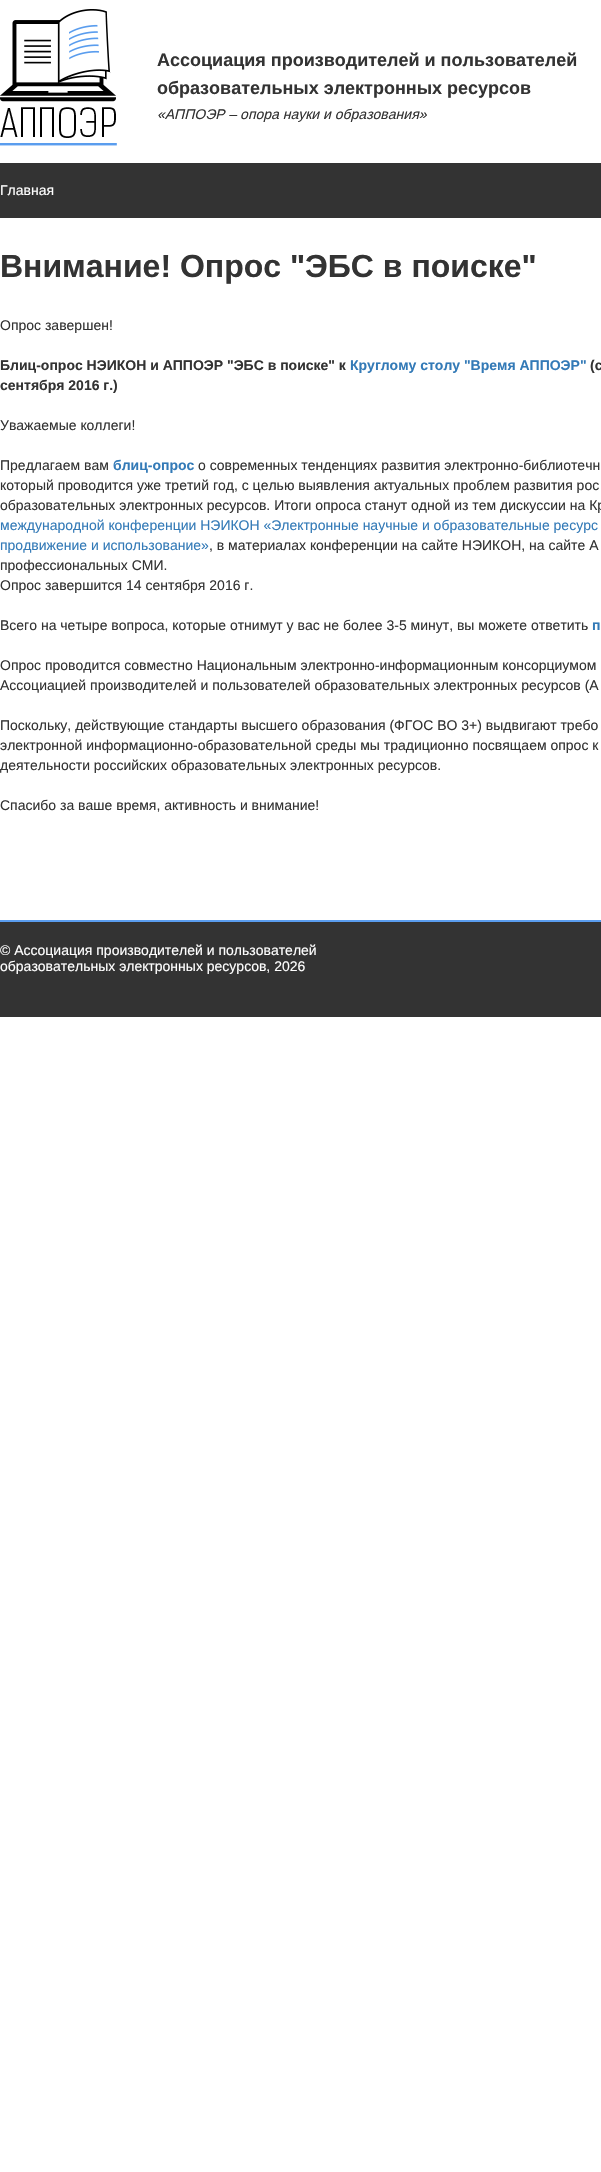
void draw(SkCanvas* canvas) {
	SkPaint paint;
	paint.setAntiAlias(true);
	auto svgPath = [&](const char* data, bool evenOdd = false) {
		SkPath result = *SkParsePath::FromSVGString(data);
		if (evenOdd) result.setFillType(SkPathFillType::kEvenOdd);
		return result;
	};
	canvas->clear(0xffffffff);
	canvas->drawImageRect(SkImages::DeferredFromEncodedData(SkData::MakeFromFileName("img1.png")), SkRect::MakeXYWH(0, 9, 117, 137), SkSamplingOptions());
	SkFont f1(fontMgr->matchFamilyStyle("Arimo", SkFontStyle::Bold()), 18);
	f1.setSubpixel(true);
	paint.setColor(0xff333333);
	canvas->drawString("Ассоциация производителей и пользователей", 157, 66, f1, paint);
	canvas->drawString("образовательных электронных ресурсов", 157, 94, f1, paint);
	SkFont f2(fontMgr->matchFamilyStyle("Arimo", SkFontStyle::Italic()), 14);
	f2.setSubpixel(true);
	canvas->drawString("«АППОЭР – опора науки и образования»", 157, 119, f2, paint);
	canvas->drawRect(SkRect::MakeXYWH(0, 163, 601, 55), paint);
	SkFont f3(fontMgr->matchFamilyStyle("Arimo", SkFontStyle::Normal()), 14);
	f3.setSubpixel(true);
	paint.setColor(0xffffffff);
	canvas->drawString("Главная", 0, 195, f3, paint);
	SkFont f4(fontMgr->matchFamilyStyle("Liberation Sans", SkFontStyle::Normal()), 14);
	f4.setSubpixel(true);
	paint.setColor(0xff337ab7);
	canvas->drawString("международной конференции НЭИКОН «Электронные научные и образовательные ресурс", 0, 530, f4, paint);
	paint.setColor(0xffffffff);
	canvas->drawPath(svgPath("M159 519H167L163 523Z"), paint);
	SkFont f5(fontMgr->matchFamilyStyle("Arimo", SkFontStyle::Bold()), 32);
	f5.setSubpixel(true);
	paint.setColor(0xff333333);
	canvas->drawString("Внимание! Опрос \"ЭБС в поиске\"", 0, 277, f5, paint);
	canvas->drawString("Опрос завершен!", 0, 330, f4, paint);
	SkFont f6(fontMgr->matchFamilyStyle("Liberation Sans", SkFontStyle::Bold()), 14);
	f6.setSubpixel(true);
	canvas->drawString("Блиц-опрос НЭИКОН и АППОЭР \"ЭБС в поиске\" к", 0, 370, f6, paint);
	paint.setColor(0xff337ab7);
	canvas->drawString("Круглому столу \"Время АППОЭР\"", 350, 370, f6, paint);
	paint.setColor(0xff333333);
	canvas->drawString("(с", 590, 370, f6, paint);
	canvas->drawString("сентября 2016 г.)", 0, 390, f6, paint);
	canvas->drawString("Уважаемые коллеги!", 0, 430, f4, paint);
	canvas->drawString("Предлагаем вам", 0, 470, f4, paint);
	paint.setColor(0xff337ab7);
	canvas->drawString("блиц-опрос", 113, 470, f6, paint);
	paint.setColor(0xff333333);
	canvas->drawString("о современных тенденциях развития электронно-библиотечн", 198, 470, f4, paint);
	canvas->drawString("который проводится уже третий год, с целью выявления актуальных проблем развития рос", 0, 490, f4, paint);
	canvas->drawString("образовательных электронных ресурсов. Итоги опроса станут одной из тем дискуссии на Кр", 0, 510, f4, paint);
	paint.setColor(0xff337ab7);
	canvas->drawString("продвижение и использование»", 0, 550, f4, paint);
	paint.setColor(0xff333333);
	canvas->drawString(", в материалах конференции на сайте НЭИКОН, на сайте А", 209, 550, f4, paint);
	canvas->drawString("профессиональных СМИ.", 0, 570, f4, paint);
	canvas->drawString("Опрос завершится 14 сентября 2016 г.", 0, 590, f4, paint);
	canvas->drawString("Всего на четыре вопроса, которые отнимут у вас не более 3-5 минут, вы можете ответить", 0, 630, f4, paint);
	paint.setColor(0xff337ab7);
	canvas->drawString("п", 592, 630, f6, paint);
	paint.setColor(0xff333333);
	canvas->drawString("Опрос проводится совместно Национальным электронно-информационным консорциумом", 0, 670, f4, paint);
	canvas->drawString("Ассоциацией производителей и пользователей образовательных электронных ресурсов (А", 0, 690, f4, paint);
	canvas->drawString("Поскольку, действующие стандарты высшего образования (ФГОС ВО 3+) выдвигают требо", 0, 730, f4, paint);
	canvas->drawString("электронной информационно-образовательной среды мы традиционно посвящаем опрос к", 0, 750, f4, paint);
	canvas->drawString("деятельности российских образовательных электронных ресурсов.", 0, 770, f4, paint);
	canvas->drawString("Спасибо за ваше время, активность и внимание!", 0, 810, f4, paint);
	canvas->drawRect(SkRect::MakeXYWH(0, 922, 601, 95), paint);
	paint.setColor(0xff5a9def);
	canvas->drawRect(SkRect::MakeXYWH(0, 920, 601, 2), paint);
	paint.setColor(0xffffffff);
	canvas->drawString("© Ассоциация производителей и пользователей", 0, 955, f3, paint);
	canvas->drawString("образовательных электронных ресурсов, 2026", 0, 971, f3, paint);
}
